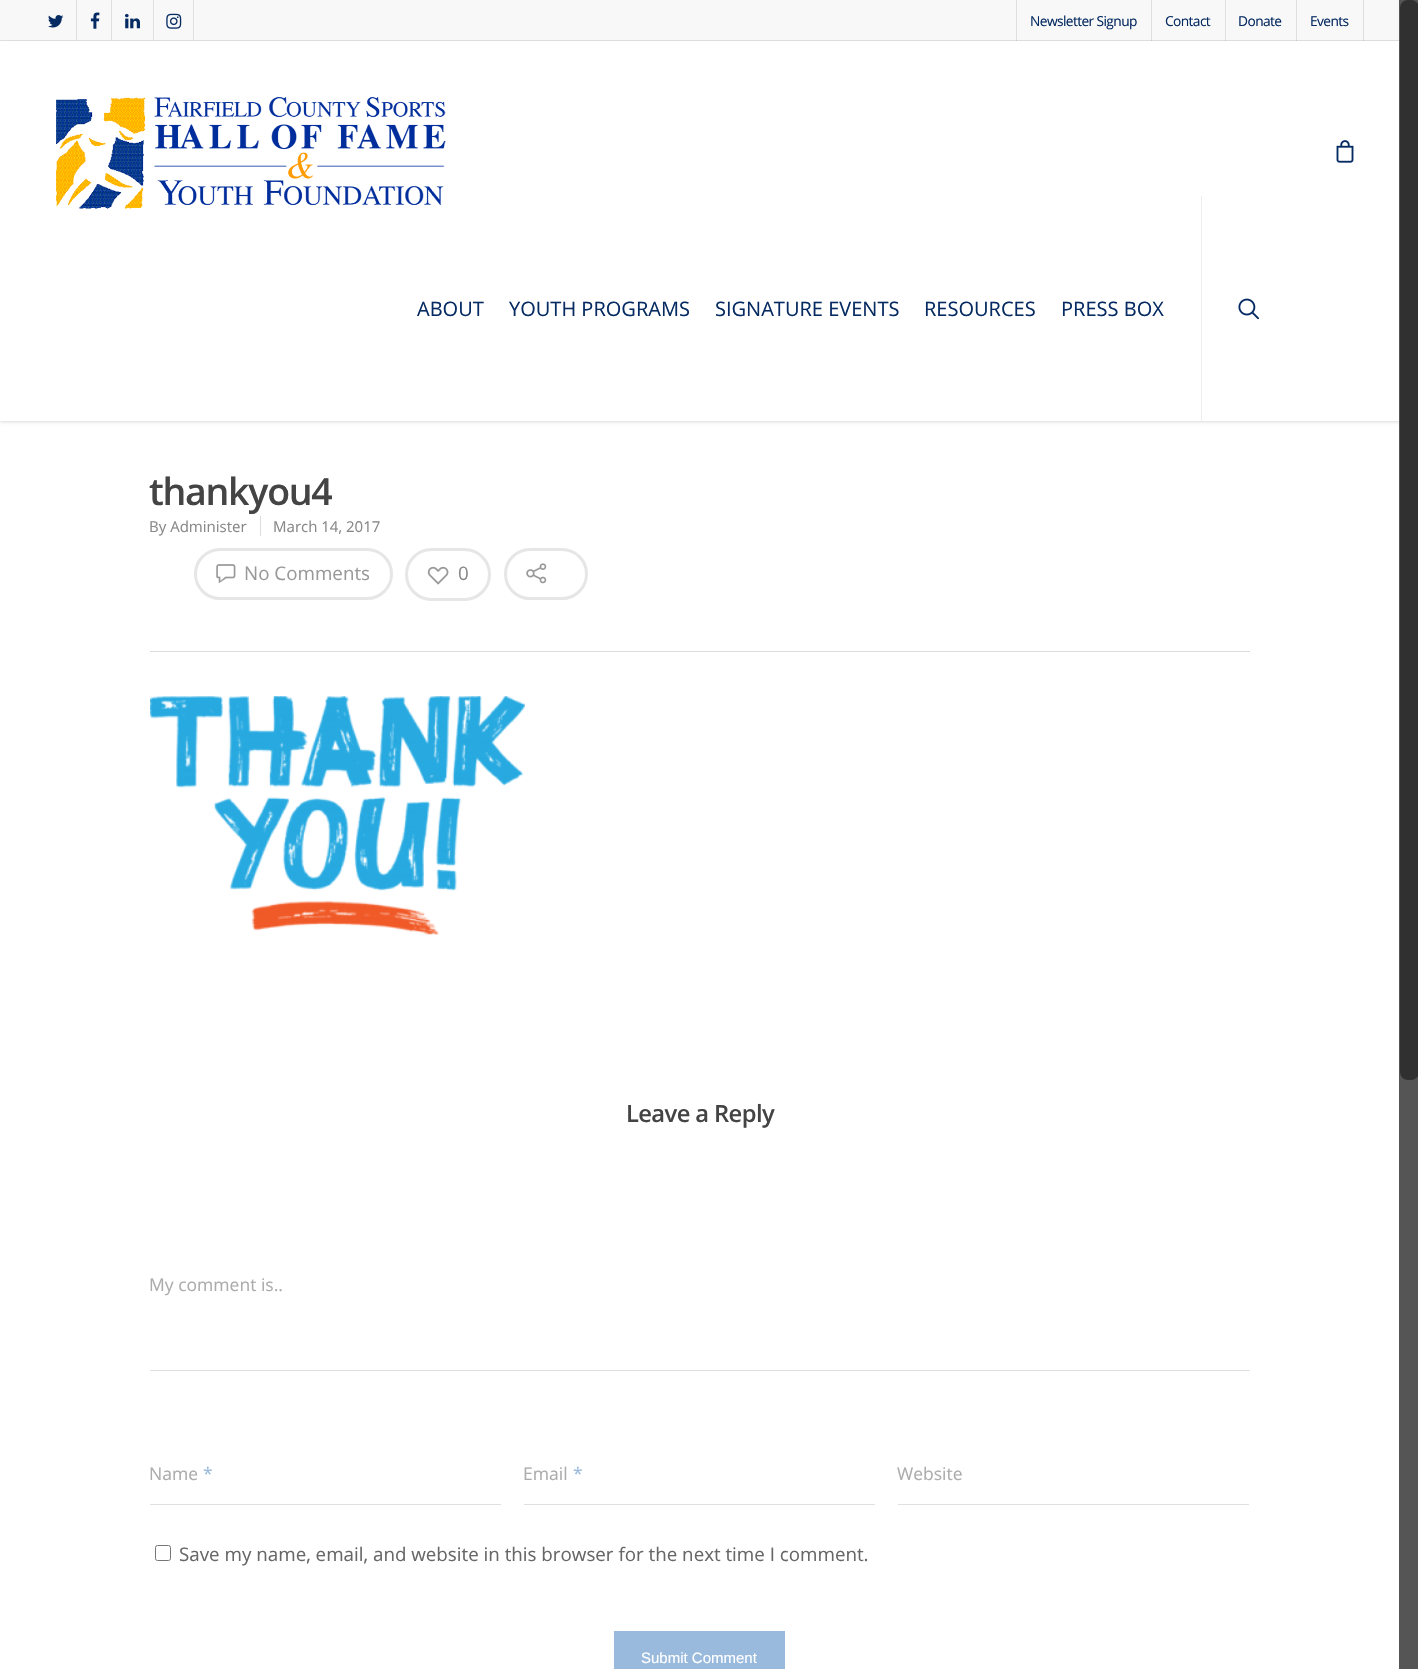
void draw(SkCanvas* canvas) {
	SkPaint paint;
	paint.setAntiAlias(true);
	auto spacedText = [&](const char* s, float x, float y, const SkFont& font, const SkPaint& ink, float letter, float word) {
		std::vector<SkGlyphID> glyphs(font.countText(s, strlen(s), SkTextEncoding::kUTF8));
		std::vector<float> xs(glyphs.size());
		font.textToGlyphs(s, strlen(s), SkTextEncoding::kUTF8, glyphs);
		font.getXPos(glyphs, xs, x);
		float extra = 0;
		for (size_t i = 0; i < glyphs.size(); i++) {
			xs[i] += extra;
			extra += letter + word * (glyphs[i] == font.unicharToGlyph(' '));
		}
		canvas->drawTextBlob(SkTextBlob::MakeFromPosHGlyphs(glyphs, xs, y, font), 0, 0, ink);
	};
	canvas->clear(0xffffffff);
	paint.setColor(0x38000000);
	paint.setMaskFilter(SkMaskFilter::MakeBlur(kNormal_SkBlurStyle, 2));
	canvas->drawRect(SkRect::MakeXYWH(0, 40, 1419, 381), paint);
	paint.setMaskFilter(nullptr);
	paint.setColor(0xfff8f8f8);
	canvas->drawRect(SkRect::MakeXYWH(0, 0, 1399, 40), paint);
	paint.setColor(0xffdfdfdf);
	canvas->drawRect(SkRect::MakeXYWH(0, 40, 2, 1), paint);
	canvas->drawImageRect(SkImages::DeferredFromEncodedData(SkData::MakeFromFileName("img1.png")), SkRect::MakeXYWH(48, 15, 16, 13), SkSamplingOptions());
	canvas->drawRect(SkRect::MakeXYWH(76, 0, 1, 40), paint);
	canvas->drawImageRect(SkImages::DeferredFromEncodedData(SkData::MakeFromFileName("img2.png")), SkRect::MakeXYWH(90, 12, 10, 17), SkSamplingOptions());
	canvas->drawRect(SkRect::MakeXYWH(111, 0, 1, 40), paint);
	canvas->drawImageRect(SkImages::DeferredFromEncodedData(SkData::MakeFromFileName("img3.png")), SkRect::MakeXYWH(125, 14, 15, 15), SkSamplingOptions());
	canvas->drawRect(SkRect::MakeXYWH(193, 0, 1, 40), paint);
	canvas->drawRect(SkRect::MakeXYWH(153, 0, 1, 40), paint);
	canvas->drawImageRect(SkImages::DeferredFromEncodedData(SkData::MakeFromFileName("img4.png")), SkRect::MakeXYWH(166, 13, 16, 16), SkSamplingOptions());
	paint.setColor(0x1a000000);
	canvas->drawRect(SkRect::MakeXYWH(1016, 0, 1, 41), paint);
	SkFont f1(fontMgr->matchFamilyStyle("Open Sans", SkFontStyle::Normal()), 13.75);
	f1.setSubpixel(true);
	paint.setColor(0xff062b62);
	spacedText("Newsletter Signup", 1030, 26, f1, paint, -0.6, 0);
	paint.setColor(0x1a000000);
	canvas->drawRect(SkRect::MakeXYWH(1151, 0, 1, 41), paint);
	paint.setColor(0xff062b62);
	spacedText("Contact", 1165, 26, f1, paint, -0.6, 0);
	paint.setColor(0x1a000000);
	canvas->drawRect(SkRect::MakeXYWH(1225, 0, 1, 41), paint);
	paint.setColor(0xff062b62);
	spacedText("Donate", 1238, 26, f1, paint, -0.6, 0);
	paint.setColor(0x1a000000);
	canvas->drawRect(SkRect::MakeXYWH(1363, 0, 1, 41), paint);
	canvas->drawRect(SkRect::MakeXYWH(1296, 0, 1, 41), paint);
	paint.setColor(0xff062b62);
	spacedText("Events", 1310, 26, f1, paint, -0.6, 0);
	paint.setColor(0xff555555);
	canvas->drawRect(SkRect::MakeXYWH(1399, 0, 19, 1669), paint);
	paint.setColor(0xff303030);
	canvas->drawRoundRect(SkRect::MakeXYWH(1400, 0, 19, 1080), 8, 8, paint);
	paint.setColor(0xffffffff);
	canvas->drawRect(SkRect::MakeXYWH(0, 41, 1399, 380), paint);
	canvas->drawImageRect(SkImages::DeferredFromEncodedData(SkData::MakeFromFileName("img5.png")), SkRect::MakeXYWH(1336, 140, 18, 23), SkSamplingOptions());
	canvas->drawImageRect(SkImages::DeferredFromEncodedData(SkData::MakeFromFileName("img6.png")), SkRect::MakeXYWH(56, 97, 390, 112), SkSamplingOptions());
	SkFont f2(fontMgr->matchFamilyStyle("Open Sans", SkFontStyle::Normal()), 20);
	f2.setSubpixel(true);
	paint.setColor(0xff062b62);
	canvas->drawString("ABOUT", 417, 316, f2, paint);
	canvas->drawString("YOUTH PROGRAMS", 509, 316, f2, paint);
	canvas->drawString("SIGNATURE EVENTS", 715, 316, f2, paint);
	canvas->drawString("RESOURCES", 924, 316, f2, paint);
	canvas->drawString("PRESS BOX", 1061, 316, f2, paint);
	paint.setColor(0xffededed);
	canvas->drawRect(SkRect::MakeXYWH(1201, 196, 1, 225), paint);
	canvas->drawImageRect(SkImages::DeferredFromEncodedData(SkData::MakeFromFileName("img7.png")), SkRect::MakeXYWH(1238, 298, 21, 22), SkSamplingOptions());
	paint.setColor(0xffdddddd);
	canvas->drawRect(SkRect::MakeXYWH(150, 651, 1100, 1), paint);
	SkFont f3(fontMgr->matchFamilyStyle("Open Sans", SkFontStyle(600, SkFontStyle::kNormal_Width, SkFontStyle::kUpright_Slant)), 37.5);
	f3.setSubpixel(true);
	paint.setColor(0xff444444);
	spacedText("thankyou4", 149, 505, f3, paint, -1.25, 0);
	SkFont f4(fontMgr->matchFamilyStyle("Open Sans", SkFontStyle::Normal()), 15);
	f4.setSubpixel(true);
	paint.setColor(0xff888888);
	canvas->drawString("By Administer", 149, 532, f4, paint);
	paint.setColor(0xffdddddd);
	canvas->drawRect(SkRect::MakeXYWH(260, 516, 1, 20), paint);
	paint.setColor(0xff888888);
	canvas->drawString("March 14, 2017", 273, 532, f4, paint);
	paint.setStroke(true);
	paint.setStrokeWidth(3);
	paint.setColor(0xffe6e6e6);
	canvas->drawRoundRect(SkRect::MakeXYWH(195.5, 549.5, 196, 49), 24.5, 24.5, paint);
	canvas->drawImageRect(SkImages::DeferredFromEncodedData(SkData::MakeFromFileName("img8.png")), SkRect::MakeXYWH(216, 564, 20, 20), SkSamplingOptions());
	SkFont f5(fontMgr->matchFamilyStyle("Open Sans", SkFontStyle::Normal()), 18.75);
	f5.setSubpixel(true);
	paint.setStroke(false);
	paint.setColor(0xff999999);
	canvas->drawString("No Comments", 244, 580, f5, paint);
	paint.setStroke(true);
	paint.setColor(0xffe6e6e6);
	canvas->drawRoundRect(SkRect::MakeXYWH(406.5, 549.5, 83, 50), 25, 25, paint);
	canvas->drawImageRect(SkImages::DeferredFromEncodedData(SkData::MakeFromFileName("img9.png")), SkRect::MakeXYWH(427, 566, 22, 19), SkSamplingOptions());
	paint.setStroke(false);
	paint.setColor(0xff888888);
	canvas->drawString("0", 458, 580, f5, paint);
	paint.setStroke(true);
	paint.setColor(0xffe6e6e6);
	canvas->drawRoundRect(SkRect::MakeXYWH(505.5, 549.5, 81, 49), 24.5, 24.5, paint);
	canvas->drawImageRect(SkImages::DeferredFromEncodedData(SkData::MakeFromFileName("img10.png")), SkRect::MakeXYWH(526, 563, 21, 21), SkSamplingOptions());
	canvas->drawImageRect(SkImages::DeferredFromEncodedData(SkData::MakeFromFileName("img11.png")), SkRect::MakeXYWH(150, 696, 375, 239), SkSamplingOptions());
	SkFont f6(fontMgr->matchFamilyStyle("Open Sans", SkFontStyle(600, SkFontStyle::kNormal_Width, SkFontStyle::kUpright_Slant)), 23.75);
	f6.setSubpixel(true);
	paint.setStroke(false);
	paint.setColor(0xff444444);
	spacedText("Leave a Reply", 626, 1122, f6, paint, -0.6, 0);
	SkFont f7(fontMgr->matchFamilyStyle("Open Sans", SkFontStyle::Normal()), 17.5);
	f7.setSubpixel(true);
	paint.setColor(0xffacacac);
	canvas->drawString("My comment is..", 149, 1291, f7, paint);
	paint.setColor(0xffe0e0e0);
	canvas->drawRect(SkRect::MakeXYWH(150, 1370, 1100, 1), paint);
	paint.setColor(0xffacacac);
	canvas->drawString("Name", 149, 1480, f7, paint);
	paint.setColor(0xff99badd);
	canvas->drawString("*", 203, 1480, f7, paint);
	paint.setColor(0xffe0e0e0);
	canvas->drawRect(SkRect::MakeXYWH(150, 1504, 351, 1), paint);
	paint.setColor(0xffacacac);
	canvas->drawString("Email", 523, 1480, f7, paint);
	paint.setColor(0xff99badd);
	canvas->drawString("*", 573, 1480, f7, paint);
	paint.setColor(0xffe0e0e0);
	canvas->drawRect(SkRect::MakeXYWH(524, 1504, 351, 1), paint);
	paint.setColor(0xffacacac);
	canvas->drawString("Website", 897, 1480, f7, paint);
	paint.setColor(0xffe0e0e0);
	canvas->drawRect(SkRect::MakeXYWH(898, 1504, 351, 1), paint);
	paint.setStroke(true);
	paint.setStrokeWidth(1);
	paint.setColor(0xff767676);
	canvas->drawRoundRect(SkRect::MakeXYWH(155.5, 1545.5, 15, 15), 2, 2, paint);
	paint.setStroke(false);
	paint.setColor(0xff676767);
	canvas->drawString("Save my name, email, and website in this browser for the next time I comment.", 179, 1561, f5, paint);
	paint.setColor(0xff99badd);
	canvas->drawRect(SkRect::MakeXYWH(614, 1631, 171, 38), paint);
	SkFont f8(fontMgr->matchFamilyStyle("Liberation Sans", SkFontStyle::Normal()), 15);
	f8.setSubpixel(true);
	paint.setColor(0xffffffff);
	canvas->drawString("Submit Comment", 641, 1663, f8, paint);
}
